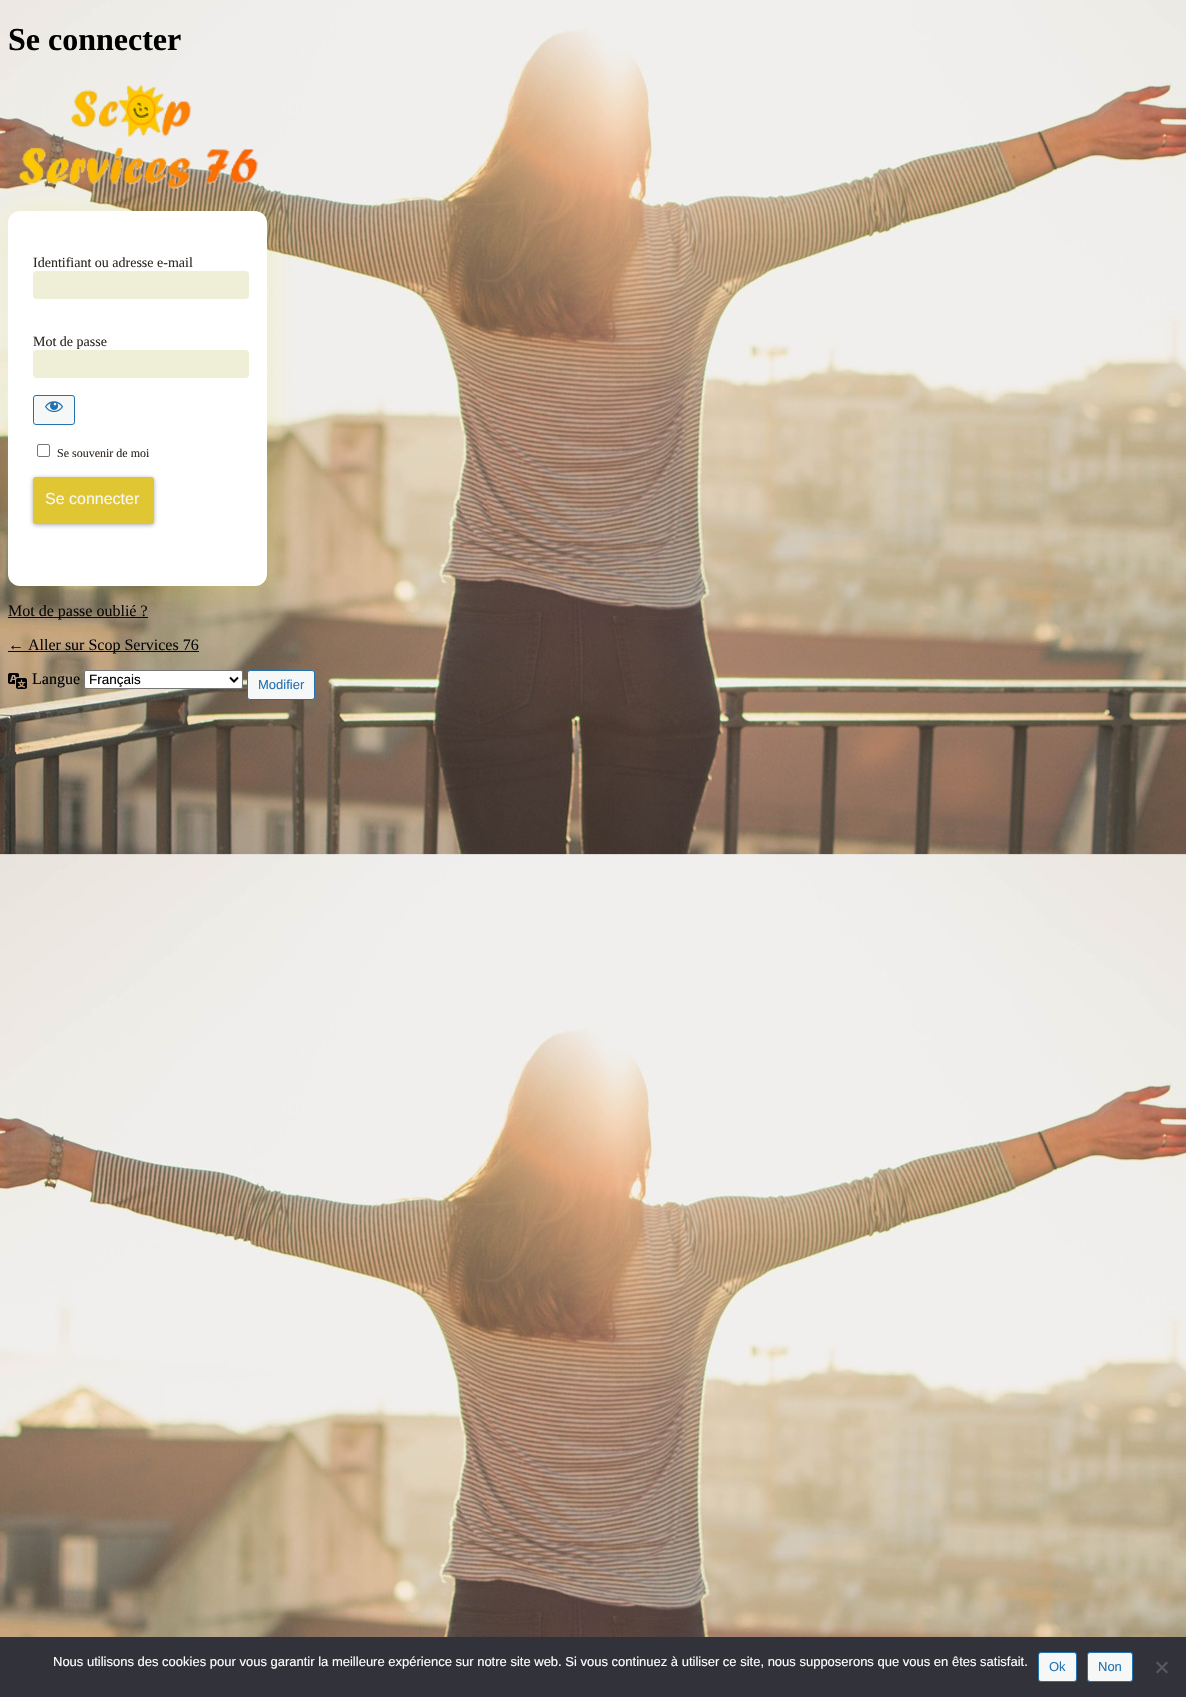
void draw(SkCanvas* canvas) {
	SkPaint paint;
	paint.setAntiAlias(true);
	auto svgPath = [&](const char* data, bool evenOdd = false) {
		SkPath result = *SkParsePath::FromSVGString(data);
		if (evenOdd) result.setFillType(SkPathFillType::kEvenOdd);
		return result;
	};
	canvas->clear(0xffffffff);
	canvas->drawImageRect(SkImages::DeferredFromEncodedData(SkData::MakeFromFileName("img1.png")), SkRect::MakeXYWH(0, 0, 1186, 1637), SkSamplingOptions());
	SkFont f1(fontMgr->matchFamilyStyle("Liberation Serif", SkFontStyle::Bold()), 32);
	f1.setSubpixel(true);
	paint.setColor(0xff000000);
	canvas->drawString("Se connecter", 8, 50, f1, paint);
	paint.setColor(0x33eeee22);
	paint.setMaskFilter(SkMaskFilter::MakeBlur(kNormal_SkBlurStyle, 16));
	canvas->drawRoundRect(SkRect::MakeXYWH(8, 212, 259, 375), 12, 12, paint);
	paint.setMaskFilter(nullptr);
	canvas->drawImageRect(SkImages::DeferredFromEncodedData(SkData::MakeFromFileName("img2.png")), SkRect::MakeXYWH(19, 84, 239, 105), SkSamplingOptions());
	paint.setColor(0xffffffff);
	canvas->drawRoundRect(SkRect::MakeXYWH(8, 211, 259, 375), 12, 12, paint);
	SkFont f2(fontMgr->matchFamilyStyle("Liberation Serif", SkFontStyle::Normal()), 14);
	f2.setSubpixel(true);
	paint.setColor(0xff302a24);
	canvas->drawString("Identifiant ou adresse e-mail", 33, 267, f2, paint);
	paint.setColor(0xffefeed7);
	canvas->drawRoundRect(SkRect::MakeXYWH(33, 271, 216, 28), 4, 4, paint);
	paint.setColor(0xff302a24);
	canvas->drawString("Mot de passe", 33, 346, f2, paint);
	paint.setColor(0xffefeed7);
	canvas->drawRoundRect(SkRect::MakeXYWH(33, 350, 216, 28), 4, 4, paint);
	paint.setColor(0xfff6f7f7);
	canvas->drawRoundRect(SkRect::MakeXYWH(33.5, 395.5, 41, 29), 2.5, 2.5, paint);
	paint.setStroke(true);
	paint.setStrokeWidth(1);
	paint.setColor(0xff2271b1);
	canvas->drawRoundRect(SkRect::MakeXYWH(33.5, 395.5, 41, 29), 2.5, 2.5, paint);
	canvas->drawImageRect(SkImages::DeferredFromEncodedData(SkData::MakeFromFileName("img3.png")), SkRect::MakeXYWH(45, 401, 18, 12), SkSamplingOptions());
	paint.setColor(0xff767676);
	canvas->drawRoundRect(SkRect::MakeXYWH(37.5, 444.5, 12, 12), 1.5, 1.5, paint);
	SkFont f3(fontMgr->matchFamilyStyle("Liberation Serif", SkFontStyle::Normal()), 12);
	f3.setSubpixel(true);
	paint.setStroke(false);
	paint.setColor(0xff302a24);
	canvas->drawString("Se souvenir de moi", 57, 457, f3, paint);
	paint.setColor(0xffaaaaaa);
	paint.setMaskFilter(SkMaskFilter::MakeBlur(kNormal_SkBlurStyle, 2));
	canvas->drawRoundRect(SkRect::MakeXYWH(33, 478, 121, 47), 3, 3, paint);
	paint.setMaskFilter(nullptr);
	paint.setColor(0xffe0c633);
	canvas->drawRoundRect(SkRect::MakeXYWH(33, 477, 121, 47), 3, 3, paint);
	SkFont f4(fontMgr->matchFamilyStyle("Liberation Sans", SkFontStyle::Normal()), 16);
	f4.setSubpixel(true);
	paint.setColor(0xfff7f7f7);
	canvas->drawString("Se connecter", 45, 504, f4, paint);
	paint.setColor(0xff0a0a0a);
	canvas->drawRect(SkRect::MakeXYWH(8, 617, 140, 1), paint);
	SkFont f5(fontMgr->matchFamilyStyle("Liberation Serif", SkFontStyle::Normal()), 16);
	f5.setSubpixel(true);
	canvas->drawString("Mot de passe oublié ?", 8, 616, f5, paint);
	canvas->drawRect(SkRect::MakeXYWH(8, 651, 191, 1), paint);
	canvas->drawString("← Aller sur Scop Services 76", 8, 650, f5, paint);
	canvas->drawImageRect(SkImages::DeferredFromEncodedData(SkData::MakeFromFileName("img4.png")), SkRect::MakeXYWH(8, 673, 19, 16), SkSamplingOptions());
	paint.setColor(0xff000000);
	canvas->drawString("Langue", 32, 684, f5, paint);
	paint.setColor(0xffffffff);
	canvas->drawRoundRect(SkRect::MakeXYWH(84.5, 670.5, 158, 18), 1.5, 1.5, paint);
	paint.setStroke(true);
	paint.setColor(0xff767676);
	canvas->drawRoundRect(SkRect::MakeXYWH(84.5, 670.5, 158, 18), 1.5, 1.5, paint);
	paint.setStrokeWidth(2);
	paint.setColor(0xff000000);
	canvas->drawPath(svgPath("M230 677.5L234 681.5L238 677.5"), paint);
	SkFont f6(fontMgr->matchFamilyStyle("Liberation Sans", SkFontStyle::Normal()), 13.5);
	f6.setSubpixel(true);
	paint.setStroke(false);
	canvas->drawString("Français", 89, 684, f6, paint);
	paint.setColor(0xfff6f7f7);
	canvas->drawRoundRect(SkRect::MakeXYWH(247.5, 670.5, 67, 29), 2.5, 2.5, paint);
	paint.setStroke(true);
	paint.setStrokeWidth(1);
	paint.setColor(0xff2271b1);
	canvas->drawRoundRect(SkRect::MakeXYWH(247.5, 670.5, 67, 29), 2.5, 2.5, paint);
	SkFont f7(fontMgr->matchFamilyStyle("Liberation Sans", SkFontStyle::Normal()), 13);
	f7.setSubpixel(true);
	paint.setStroke(false);
	canvas->drawString("Modifier", 258, 689, f7, paint);
	paint.setColor(0xff32323a);
	canvas->drawRect(SkRect::MakeXYWH(0, 1637, 1186, 60), paint);
	paint.setColor(0xffffffff);
	canvas->drawString("Nous utilisons des cookies pour vous garantir la meilleure expérience sur notre site web. Si vous continuez à utiliser ce site, nous supposerons que vous en êtes satisfait.", 53, 1666, f7, paint);
	paint.setColor(0xfff6f7f7);
	canvas->drawRoundRect(SkRect::MakeXYWH(1038.5, 1652.5, 38, 29), 2.5, 2.5, paint);
	paint.setStroke(true);
	paint.setColor(0xff2271b1);
	canvas->drawRoundRect(SkRect::MakeXYWH(1038.5, 1652.5, 38, 29), 2.5, 2.5, paint);
	paint.setStroke(false);
	canvas->drawString("Ok", 1049, 1671, f7, paint);
	paint.setColor(0xfff6f7f7);
	canvas->drawRoundRect(SkRect::MakeXYWH(1087.5, 1652.5, 45, 29), 2.5, 2.5, paint);
	paint.setStroke(true);
	paint.setColor(0xff2271b1);
	canvas->drawRoundRect(SkRect::MakeXYWH(1087.5, 1652.5, 45, 29), 2.5, 2.5, paint);
	paint.setStroke(false);
	canvas->drawString("Non", 1098, 1671, f7, paint);
	paint.setColor(0xff59595d);
	canvas->drawPath(svgPath("M1166.5 1661.5L1168 1663L1157.5 1673.5L1156 1672Z"), paint);
	canvas->drawPath(svgPath("M1156 1663L1157.5 1661.5L1168 1672L1166.5 1673.5Z"), paint);
}
